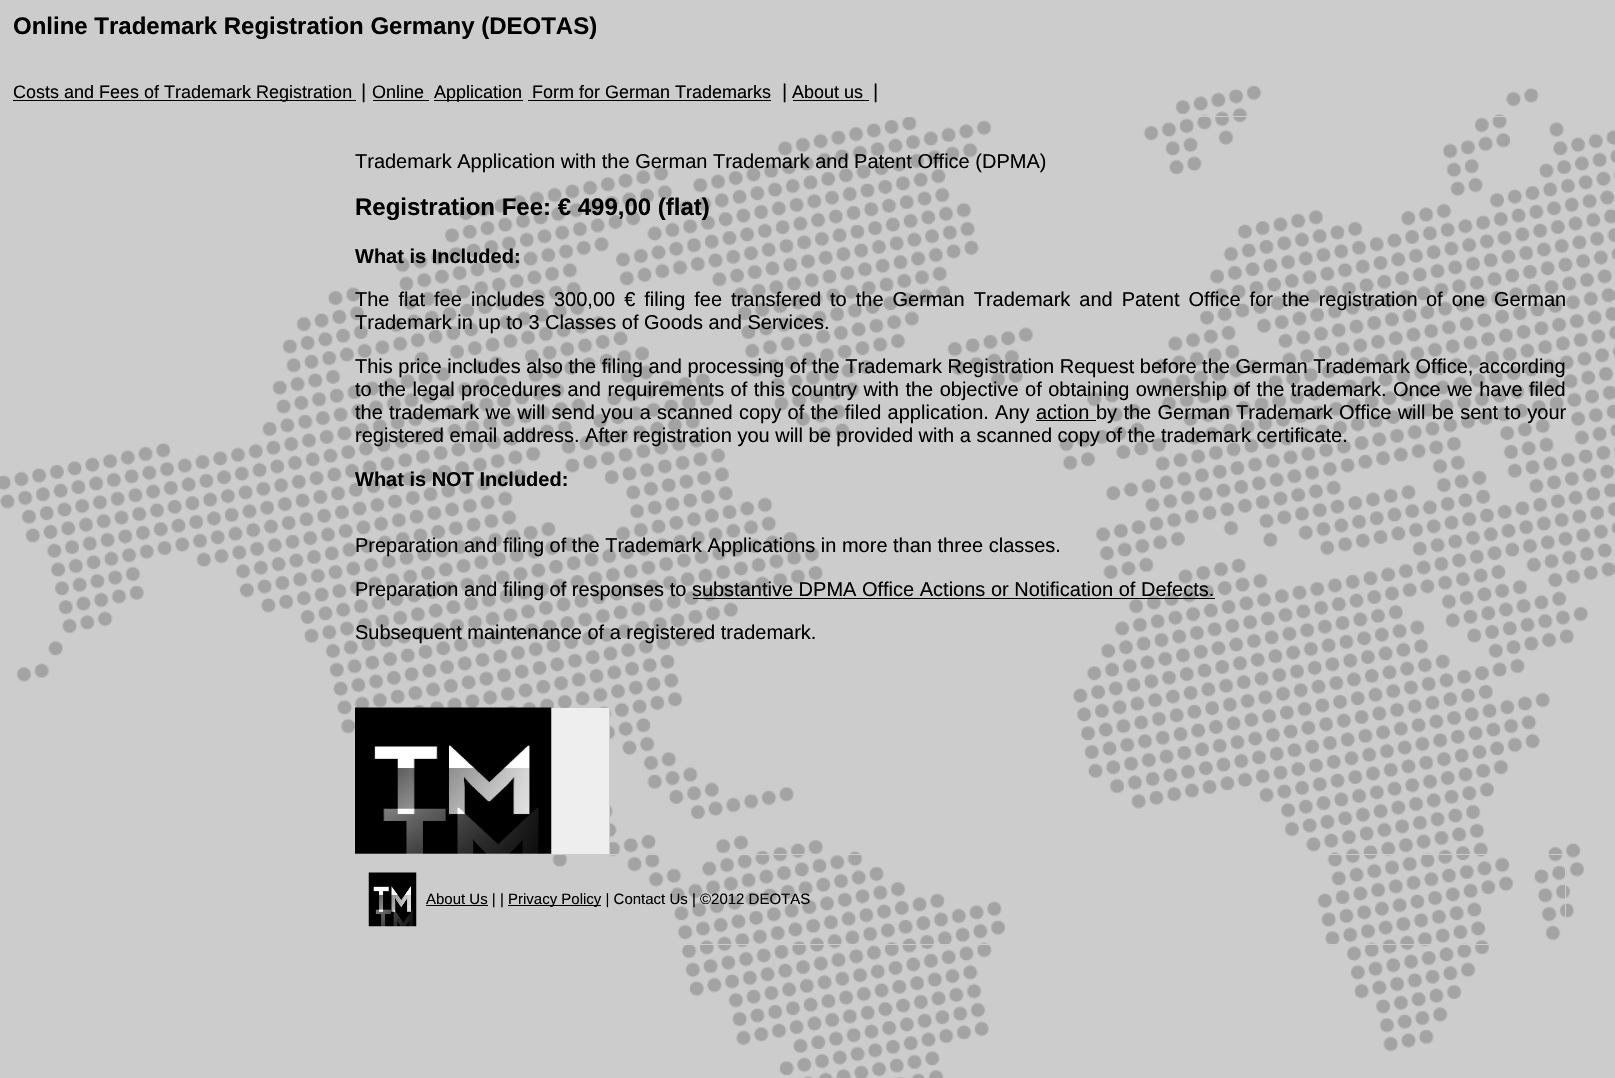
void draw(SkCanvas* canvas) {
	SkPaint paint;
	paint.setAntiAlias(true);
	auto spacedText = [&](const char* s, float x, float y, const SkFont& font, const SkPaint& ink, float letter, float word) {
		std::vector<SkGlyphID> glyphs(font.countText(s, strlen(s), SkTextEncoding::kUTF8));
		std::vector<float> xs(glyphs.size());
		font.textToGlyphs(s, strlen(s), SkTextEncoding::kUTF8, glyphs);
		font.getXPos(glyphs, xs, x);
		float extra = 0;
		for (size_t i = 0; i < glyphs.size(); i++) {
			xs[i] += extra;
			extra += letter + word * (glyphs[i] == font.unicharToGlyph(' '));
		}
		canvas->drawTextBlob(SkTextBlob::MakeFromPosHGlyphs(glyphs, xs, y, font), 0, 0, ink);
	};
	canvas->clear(0xffffffff);
	canvas->drawImageRect(SkImages::DeferredFromEncodedData(SkData::MakeFromFileName("img1.png")), SkRect::MakeXYWH(0, 0, 1615, 1078), SkSamplingOptions());
	paint.setColor(0xffcccccc);
	canvas->drawRect(SkRect::MakeXYWH(906, 116, 600, 1), paint);
	SkFont f1(fontMgr->matchFamilyStyle("Liberation Sans", SkFontStyle::Bold()), 24);
	f1.setSubpixel(true);
	paint.setColor(0xff000000);
	canvas->drawString("Online Trademark Registration Germany (DEOTAS)", 13, 34, f1, paint);
	canvas->drawRect(SkRect::MakeXYWH(13, 100, 343, 1), paint);
	SkFont f2(fontMgr->matchFamilyStyle("Liberation Sans", SkFontStyle::Normal()), 18);
	f2.setSubpixel(true);
	canvas->drawString("Costs and Fees of Trademark Registration", 13, 98, f2, paint);
	SkFont f3(fontMgr->matchFamilyStyle("Liberation Sans", SkFontStyle::Normal()), 20);
	f3.setSubpixel(true);
	canvas->drawString("|", 361, 98, f3, paint);
	canvas->drawString("Online", 372, 98, f2, paint);
	canvas->drawRect(SkRect::MakeXYWH(373, 100, 56, 1), paint);
	canvas->drawRect(SkRect::MakeXYWH(434, 100, 89, 1), paint);
	canvas->drawString("Application", 434, 98, f2, paint);
	canvas->drawString("Form for German Trademarks", 532, 98, f2, paint);
	canvas->drawRect(SkRect::MakeXYWH(528, 100, 243, 1), paint);
	canvas->drawString("|", 782, 98, f3, paint);
	canvas->drawString("About us", 792, 98, f2, paint);
	canvas->drawRect(SkRect::MakeXYWH(793, 100, 76, 1), paint);
	canvas->drawString("|", 873, 98, f3, paint);
	canvas->drawString("Trademark Application with the German Trademark and Patent Office (DPMA)", 355, 168, f3, paint);
	canvas->drawString("Registration Fee: € 499,00 (flat)", 355, 215, f1, paint);
	SkFont f4(fontMgr->matchFamilyStyle("Liberation Sans", SkFontStyle::Bold()), 20);
	f4.setSubpixel(true);
	canvas->drawString("What is Included:", 355, 263, f4, paint);
	spacedText("The flat fee", 355, 306, f3, paint, 0, 3.4);
	canvas->drawString("includes", 471, 306, f3, paint);
	spacedText("300,00 € filing fee transfered to the German Trademark and Patent Office for the registration", 554, 306, f3, paint, 0, 3.4);
	spacedText("of one German", 1426, 306, f3, paint, 0, 3.4);
	canvas->drawString("Trademark in up to 3 Classes of Goods and Services.", 355, 329, f3, paint);
	canvas->drawString("This price includes also the filing and processing of the Trademark Registration Request before the German Trademark Office, according", 355, 373, f3, paint);
	spacedText("to the legal procedures and requirements of this country with the objective of obtaining ownership of the trademark. Once we have filed", 355, 396, f3, paint, 0, 0.9);
	spacedText("the trademark we will send you a scanned copy of the filed application. Any", 355, 419, f3, paint, 0, 0.75);
	canvas->drawString("action", 1036, 419, f3, paint);
	canvas->drawRect(SkRect::MakeXYWH(1036, 420, 60, 1), paint);
	spacedText("by the German Trademark Office will be sent to your", 1096, 419, f3, paint, 0, 0.75);
	canvas->drawString("registered email address. After registration you will be provided with a scanned copy of the trademark certificate.", 355, 442, f3, paint);
	canvas->drawString("What is NOT Included:", 355, 486, f4, paint);
	canvas->drawString("Preparation and filing of the Trademark Applications in more than three classes.", 355, 552, f3, paint);
	canvas->drawString("Preparation and filing of responses to substantive DPMA Office Actions or Notification of Defects.", 355, 596, f3, paint);
	canvas->drawRect(SkRect::MakeXYWH(693, 598, 522, 1), paint);
	canvas->drawString("Subsequent maintenance of a registered trademark.", 355, 639, f3, paint);
	paint.setColor(0xffeeeeee);
	canvas->drawRect(SkRect::MakeXYWH(355, 708, 254, 146), paint);
	paint.setColor(0xffcccccc);
	canvas->drawRect(SkRect::MakeXYWH(609, 708, 1, 147), paint);
	canvas->drawImageRect(SkImages::DeferredFromEncodedData(SkData::MakeFromFileName("img2.png")), SkRect::MakeXYWH(355, 707, 197, 147), SkSamplingOptions());
	paint.setStroke(true);
	paint.setStrokeWidth(1);
	canvas->drawRect(SkRect::MakeXYWH(355.5, 854.5, 1210, 90), paint);
	canvas->drawImageRect(SkImages::DeferredFromEncodedData(SkData::MakeFromFileName("img3.png")), SkRect::MakeXYWH(368, 872, 49, 55), SkSamplingOptions());
	paint.setStroke(false);
	paint.setColor(0xff000000);
	canvas->drawRect(SkRect::MakeXYWH(426, 905, 62, 1), paint);
	SkFont f5(fontMgr->matchFamilyStyle("Liberation Sans", SkFontStyle::Normal()), 15);
	f5.setSubpixel(true);
	canvas->drawString("About Us | |", 426, 904, f5, paint);
	canvas->drawRect(SkRect::MakeXYWH(508, 905, 93, 1), paint);
	canvas->drawString("Privacy Policy | Contact Us | ©2012 DEOTAS", 508, 904, f5, paint);
}
